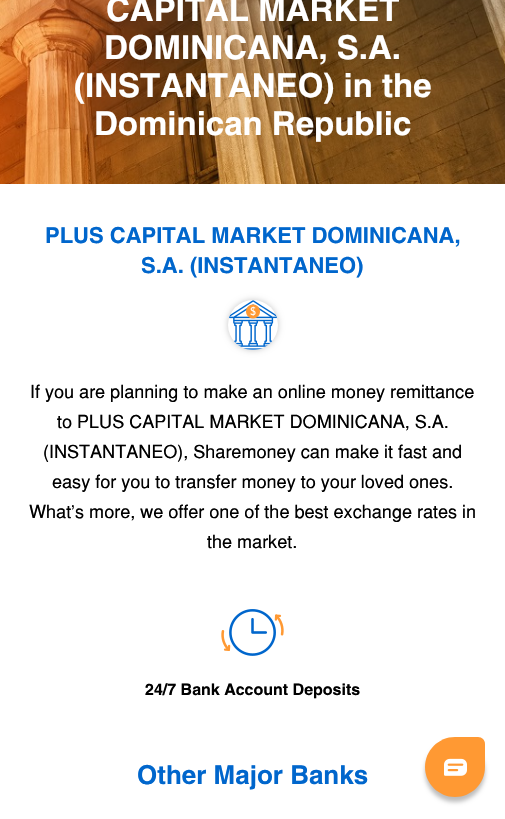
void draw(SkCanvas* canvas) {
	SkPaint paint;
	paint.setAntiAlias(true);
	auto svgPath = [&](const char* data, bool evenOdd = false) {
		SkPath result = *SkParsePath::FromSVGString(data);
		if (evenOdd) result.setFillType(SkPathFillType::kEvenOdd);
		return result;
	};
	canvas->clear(0xffffffff);
	canvas->drawImageRect(SkImages::DeferredFromEncodedData(SkData::MakeFromFileName("img1.png")), SkRect::MakeXYWH(0, 0, 505, 184), SkSamplingOptions());
	SkFont f1(fontMgr->matchFamilyStyle("Helvetica", SkFontStyle::Bold()), 33);
	f1.setSubpixel(true);
	paint.setColor(0xffffffff);
	canvas->drawString("CAPITAL MARKET", 106, 21, f1, paint);
	canvas->drawString("DOMINICANA, S.A.", 104, 59, f1, paint);
	canvas->drawString("(INSTANTANEO) in the", 74, 97, f1, paint);
	canvas->drawString("Dominican Republic", 94, 135, f1, paint);
	SkFont f2(fontMgr->matchFamilyStyle("Helvetica", SkFontStyle::Bold()), 22);
	f2.setSubpixel(true);
	paint.setColor(0xff0066cc);
	canvas->drawString("PLUS CAPITAL MARKET DOMINICANA,", 45, 243, f2, paint);
	canvas->drawString("S.A. (INSTANTANEO)", 141, 273, f2, paint);
	paint.setColor(0x38000000);
	paint.setMaskFilter(SkMaskFilter::MakeBlur(kNormal_SkBlurStyle, 3));
	canvas->drawRoundRect(SkRect::MakeXYWH(228, 300, 50, 50), 25, 25, paint);
	paint.setMaskFilter(nullptr);
	paint.setColor(0xffffffff);
	canvas->drawCircle(253, 325, 25, paint);
	canvas->drawImageRect(SkImages::DeferredFromEncodedData(SkData::MakeFromFileName("img2.png")), SkRect::MakeXYWH(229, 300, 48, 50), SkSamplingOptions());
	SkFont f3(fontMgr->matchFamilyStyle("Helvetica", SkFontStyle::Normal()), 18);
	f3.setSubpixel(true);
	paint.setColor(0xff000000);
	canvas->drawString("If you are planning to make an online money remittance", 30, 398, f3, paint);
	canvas->drawString("to PLUS CAPITAL MARKET DOMINICANA, S.A.", 57, 428, f3, paint);
	canvas->drawString("(INSTANTANEO), Sharemoney can make it fast and", 43, 458, f3, paint);
	canvas->drawString("easy for you to transfer money to your loved ones.", 52, 488, f3, paint);
	canvas->drawString("What's more, we offer one of the best exchange rates in", 29, 518, f3, paint);
	canvas->drawString("the market.", 207, 548, f3, paint);
	canvas->drawImageRect(SkImages::DeferredFromEncodedData(SkData::MakeFromFileName("img3.png")), SkRect::MakeXYWH(221, 609, 63, 47), SkSamplingOptions());
	SkFont f4(fontMgr->matchFamilyStyle("Helvetica", SkFontStyle::Bold()), 16);
	f4.setSubpixel(true);
	canvas->drawString("24/7 Bank Account Deposits", 145, 695, f4, paint);
	SkFont f5(fontMgr->matchFamilyStyle("Helvetica", SkFontStyle::Bold()), 26);
	f5.setSubpixel(true);
	paint.setColor(0xff0066cc);
	canvas->drawString("Other Major Banks", 137, 784, f5, paint);
	paint.setColor(0x42000000);
	paint.setMaskFilter(SkMaskFilter::MakeBlur(kNormal_SkBlurStyle, 2));
	canvas->drawRoundRect(SkRect::MakeXYWH(425, 742, 60, 60), 30, 30, paint);
	paint.setMaskFilter(nullptr);
	paint.setColor(0xffff9933);
	canvas->drawPath(svgPath("M455 737H478C482 737 485 740 485 744V767C485 783.5 471.5 797 455 797C438.5 797 425 783.5 425 767C425 750.5 438.5 737 455 737Z"), paint);
	canvas->drawImageRect(SkImages::DeferredFromEncodedData(SkData::MakeFromFileName("img4.png")), SkRect::MakeXYWH(444, 758, 23, 18), SkSamplingOptions());
}
